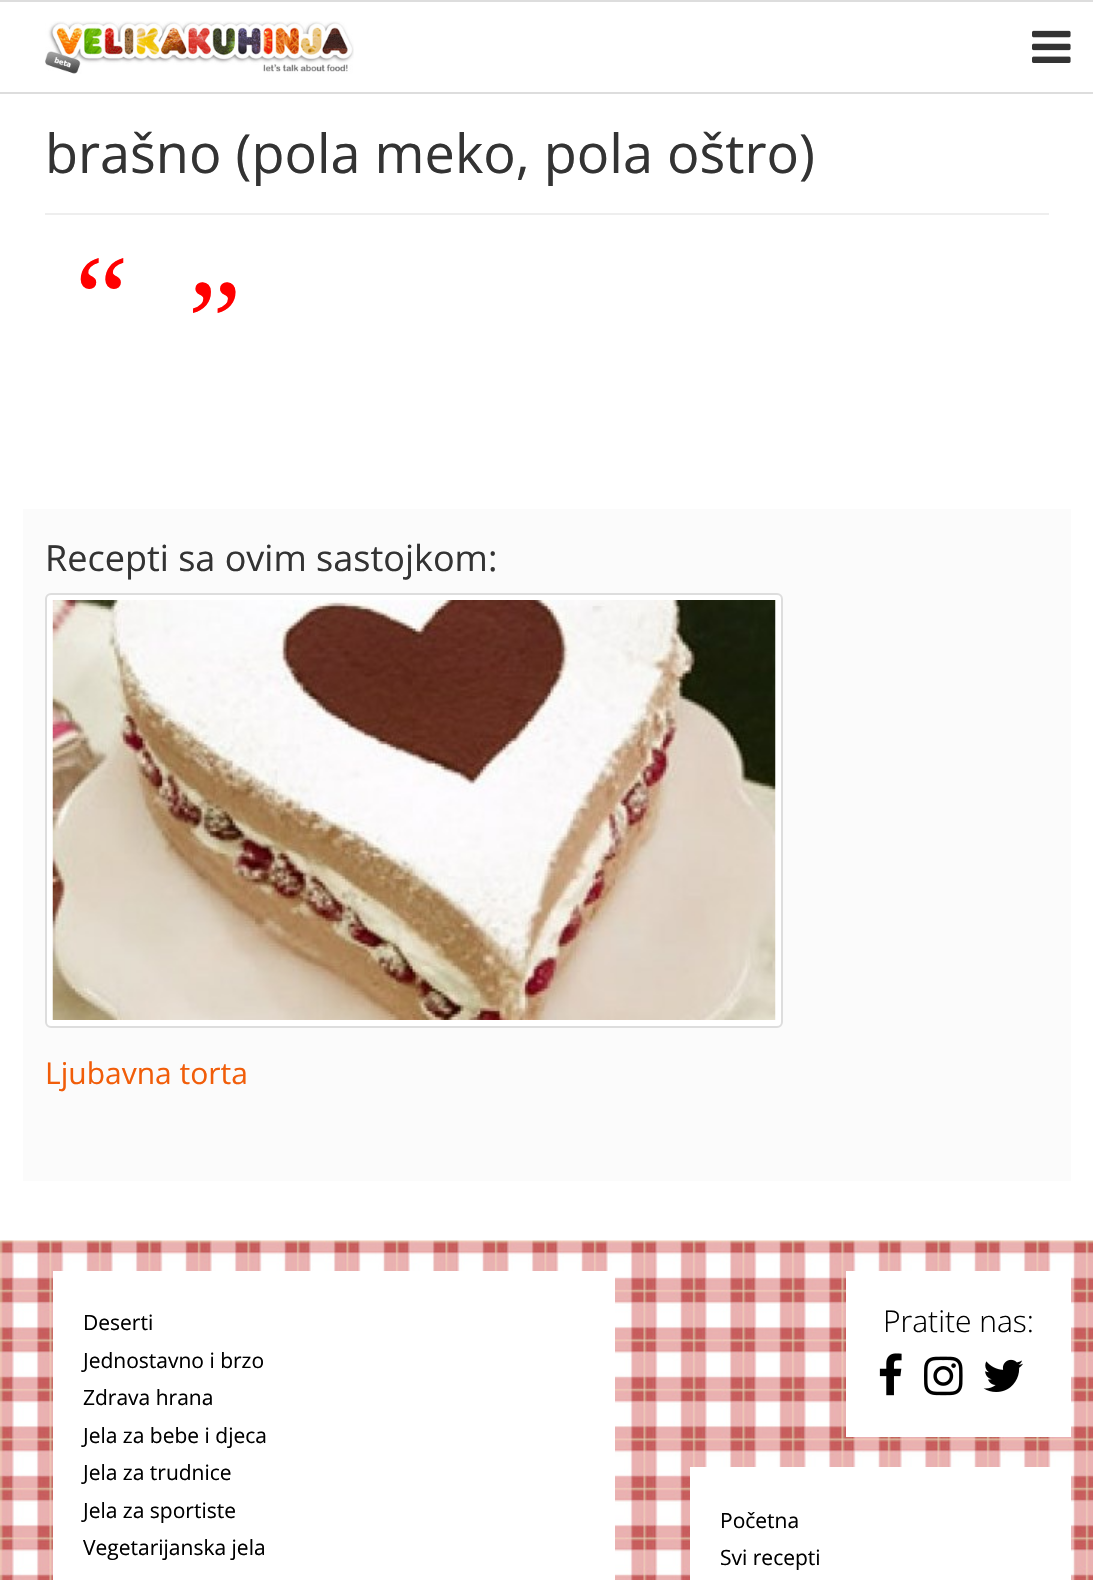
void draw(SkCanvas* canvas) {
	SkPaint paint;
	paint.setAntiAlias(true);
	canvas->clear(0xffffffff);
	paint.setColor(0xffdddddd);
	canvas->drawRect(SkRect::MakeXYWH(0, 0, 1093, 2), paint);
	canvas->drawRect(SkRect::MakeXYWH(0, 92, 1093, 2), paint);
	canvas->drawImageRect(SkImages::DeferredFromEncodedData(SkData::MakeFromFileName("img1.png")), SkRect::MakeXYWH(45, 21, 309, 53), SkSamplingOptions());
	canvas->drawImageRect(SkImages::DeferredFromEncodedData(SkData::MakeFromFileName("img2.png")), SkRect::MakeXYWH(1032, 30, 39, 33), SkSamplingOptions());
	SkFont f1(fontMgr->matchFamilyStyle("Open Sans", SkFontStyle::Normal()), 54);
	f1.setSubpixel(true);
	paint.setColor(0xff333333);
	canvas->drawString("brašno (pola meko, pola oštro)", 45, 173, f1, paint);
	paint.setColor(0xffeeeeee);
	canvas->drawRect(SkRect::MakeXYWH(45, 213, 1004, 2), paint);
	SkFont f2(fontMgr->matchFamilyStyle("Liberation Serif", SkFontStyle::Normal()), 120);
	f2.setSubpixel(true);
	paint.setColor(0xffff0000);
	canvas->drawString("“", 75, 338, f2, paint);
	canvas->drawString("”", 188, 362, f2, paint);
	paint.setColor(0xfffbfbfb);
	canvas->drawRect(SkRect::MakeXYWH(23, 509, 1048, 672), paint);
	SkFont f3(fontMgr->matchFamilyStyle("Open Sans", SkFontStyle::Normal()), 36);
	f3.setSubpixel(true);
	paint.setColor(0xff333333);
	canvas->drawString("Recepti sa ovim sastojkom:", 45, 571, f3, paint);
	paint.setColor(0xffffffff);
	canvas->drawRoundRect(SkRect::MakeXYWH(46, 594, 736, 433), 5, 5, paint);
	paint.setStroke(true);
	paint.setStrokeWidth(2);
	paint.setColor(0xffdddddd);
	canvas->drawRoundRect(SkRect::MakeXYWH(46, 594, 736, 433), 5, 5, paint);
	canvas->drawImageRect(SkImages::DeferredFromEncodedData(SkData::MakeFromFileName("img3.png")), SkRect::MakeXYWH(52, 600, 724, 420), SkSamplingOptions());
	SkFont f4(fontMgr->matchFamilyStyle("Open Sans", SkFontStyle::Normal()), 30);
	f4.setSubpixel(true);
	paint.setStroke(false);
	paint.setColor(0xfff15d09);
	canvas->drawString("Ljubavna torta", 45, 1084, f4, paint);
	canvas->drawImageRect(SkImages::DeferredFromEncodedData(SkData::MakeFromFileName("img4.png")), SkRect::MakeXYWH(0, 1240, 1093, 340), SkSamplingOptions());
	paint.setColor(0xffffffff);
	canvas->drawRect(SkRect::MakeXYWH(53, 1271, 562, 309), paint);
	SkFont f5(fontMgr->matchFamilyStyle("Open Sans", SkFontStyle::Normal()), 21);
	f5.setSubpixel(true);
	paint.setColor(0xff000000);
	canvas->drawString("Deserti", 83, 1330, f5, paint);
	canvas->drawString("Jednostavno i brzo", 83, 1368, f5, paint);
	canvas->drawString("Zdrava hrana", 83, 1405, f5, paint);
	canvas->drawString("Jela za bebe i djeca", 83, 1443, f5, paint);
	canvas->drawString("Jela za trudnice", 83, 1480, f5, paint);
	canvas->drawString("Jela za sportiste", 83, 1518, f5, paint);
	canvas->drawString("Vegetarijanska jela", 83, 1555, f5, paint);
	paint.setColor(0xffffffff);
	canvas->drawRect(SkRect::MakeXYWH(690, 1467, 381, 113), paint);
	paint.setColor(0xff000000);
	canvas->drawString("Početna", 720, 1528, f5, paint);
	canvas->drawString("Svi recepti", 720, 1565, f5, paint);
	paint.setColor(0xffffffff);
	canvas->drawRect(SkRect::MakeXYWH(846, 1271, 225, 166), paint);
	SkFont f6(fontMgr->matchFamilyStyle("Open Sans", SkFontStyle(300, SkFontStyle::kNormal_Width, SkFontStyle::kUpright_Slant)), 30);
	f6.setSubpixel(true);
	paint.setColor(0xff000000);
	canvas->drawString("Pratite nas:", 883, 1332, f6, paint);
	canvas->drawImageRect(SkImages::DeferredFromEncodedData(SkData::MakeFromFileName("img5.png")), SkRect::MakeXYWH(879, 1353, 23, 43), SkSamplingOptions());
	canvas->drawImageRect(SkImages::DeferredFromEncodedData(SkData::MakeFromFileName("img6.png")), SkRect::MakeXYWH(924, 1356, 39, 40), SkSamplingOptions());
	canvas->drawImageRect(SkImages::DeferredFromEncodedData(SkData::MakeFromFileName("img7.png")), SkRect::MakeXYWH(983, 1359, 40, 33), SkSamplingOptions());
}
